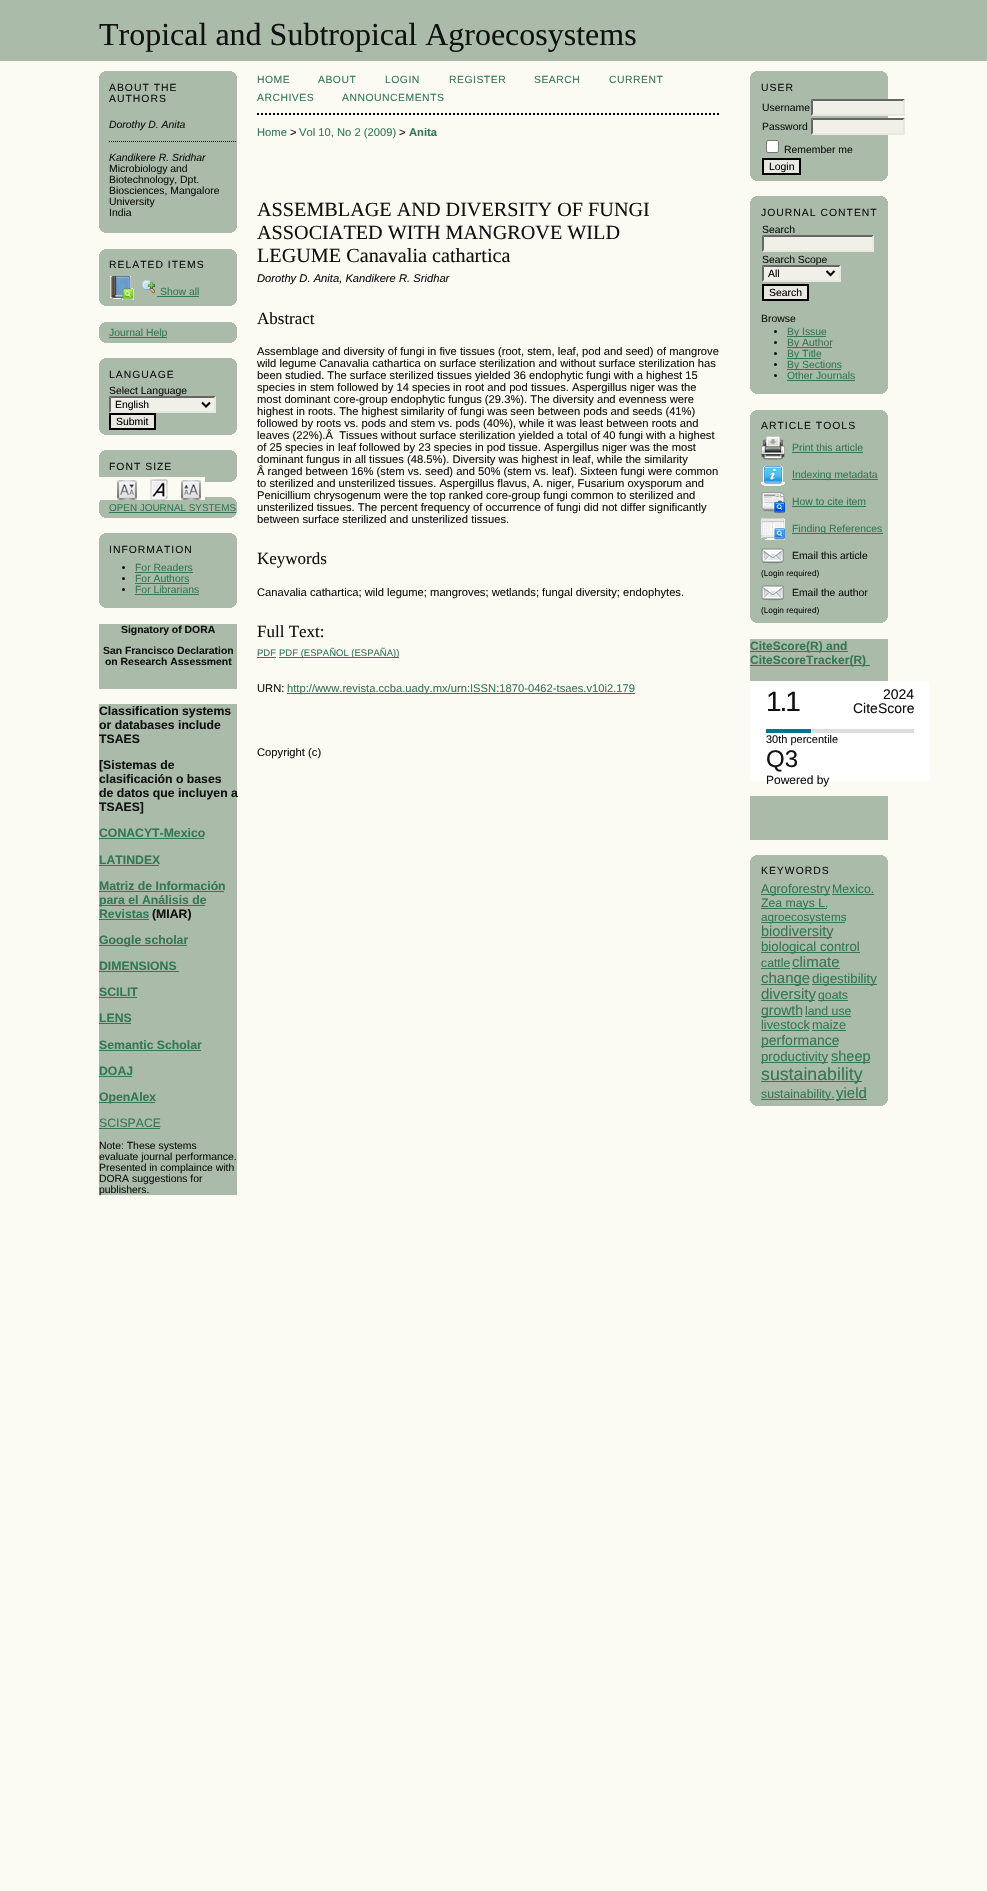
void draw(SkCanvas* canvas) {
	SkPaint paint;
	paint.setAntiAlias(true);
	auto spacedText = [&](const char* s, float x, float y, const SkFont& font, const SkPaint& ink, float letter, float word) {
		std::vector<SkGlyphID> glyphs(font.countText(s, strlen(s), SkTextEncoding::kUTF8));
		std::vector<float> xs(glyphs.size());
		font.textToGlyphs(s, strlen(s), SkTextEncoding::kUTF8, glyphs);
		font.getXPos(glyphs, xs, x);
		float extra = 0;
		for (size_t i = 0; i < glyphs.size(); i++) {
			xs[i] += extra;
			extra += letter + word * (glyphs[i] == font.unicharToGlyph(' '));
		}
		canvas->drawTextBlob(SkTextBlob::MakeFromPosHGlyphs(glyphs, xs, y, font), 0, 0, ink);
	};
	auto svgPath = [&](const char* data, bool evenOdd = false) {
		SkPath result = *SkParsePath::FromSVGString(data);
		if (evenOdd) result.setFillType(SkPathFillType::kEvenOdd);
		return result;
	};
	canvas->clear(0xfffbfbf3);
	paint.setColor(0xffaabbaa);
	canvas->drawRect(SkRect::MakeXYWH(0, 0, 987, 61), paint);
	SkFont f1(fontMgr->matchFamilyStyle("Liberation Serif", SkFontStyle::Normal()), 32);
	f1.setSubpixel(true);
	paint.setColor(0xff111111);
	canvas->drawString("Tropical and Subtropical Agroecosystems", 99, 45, f1, paint);
	paint.setStroke(true);
	paint.setStrokeWidth(2);
	paint.setColor(0xff000000);
	paint.setPathEffect(SkDashPathEffect::Make({{2, 2}}, 0));
	canvas->drawPath(svgPath("M257 114H720"), paint);
	paint.setPathEffect(nullptr);
	SkFont f2(fontMgr->matchFamilyStyle("Liberation Sans", SkFontStyle::Normal()), 10.4);
	f2.setSubpixel(true);
	paint.setStroke(false);
	paint.setColor(0xff337755);
	spacedText("HOME", 257, 83, f2, paint, 0.5, 0);
	spacedText("ABOUT", 318, 83, f2, paint, 0.5, 0);
	spacedText("LOGIN", 385, 83, f2, paint, 0.5, 0);
	spacedText("REGISTER", 449, 83, f2, paint, 0.5, 0);
	spacedText("SEARCH", 534, 83, f2, paint, 0.5, 0);
	spacedText("CURRENT", 609, 83, f2, paint, 0.5, 0);
	spacedText("ARCHIVES", 257, 101, f2, paint, 0.5, 0);
	spacedText("ANNOUNCEMENTS", 342, 101, f2, paint, 0.5, 0);
	SkFont f3(fontMgr->matchFamilyStyle("Liberation Sans", SkFontStyle::Normal()), 11.2);
	f3.setSubpixel(true);
	canvas->drawString("Home", 257, 136, f3, paint);
	paint.setColor(0xff111111);
	canvas->drawString(">", 290, 136, f3, paint);
	paint.setColor(0xff337755);
	canvas->drawString("Vol 10, No 2 (2009)", 299, 136, f3, paint);
	paint.setColor(0xff111111);
	canvas->drawString(">", 399, 136, f3, paint);
	SkFont f4(fontMgr->matchFamilyStyle("Liberation Sans", SkFontStyle::Bold()), 11.2);
	f4.setSubpixel(true);
	paint.setColor(0xff337755);
	canvas->drawString("Anita", 409, 136, f4, paint);
	SkFont f5(fontMgr->matchFamilyStyle("Liberation Serif", SkFontStyle::Normal()), 20.2);
	f5.setSubpixel(true);
	paint.setColor(0xff111111);
	canvas->drawString("ASSEMBLAGE AND DIVERSITY OF FUNGI", 257, 216, f5, paint);
	canvas->drawString("ASSOCIATED WITH MANGROVE WILD", 257, 239, f5, paint);
	canvas->drawString("LEGUME Canavalia cathartica", 257, 262, f5, paint);
	SkFont f6(fontMgr->matchFamilyStyle("Liberation Sans", SkFontStyle::Italic()), 11.2);
	f6.setSubpixel(true);
	canvas->drawString("Dorothy D. Anita, Kandikere R. Sridhar", 257, 282, f6, paint);
	SkFont f7(fontMgr->matchFamilyStyle("Liberation Serif", SkFontStyle::Normal()), 17);
	f7.setSubpixel(true);
	canvas->drawString("Abstract", 257, 324, f7, paint);
	canvas->drawString("Assemblage and diversity of fungi in five tissues (root, stem, leaf, pod and seed) of mangrove", 257, 355, f3, paint);
	canvas->drawString("wild legume Canavalia cathartica on surface sterilization and without surface sterilization has", 257, 367, f3, paint);
	canvas->drawString("been studied. The surface sterilized tissues yielded 36 endophytic fungi with a highest 15", 257, 379, f3, paint);
	canvas->drawString("species in stem followed by 14 species in root and pod tissues. Aspergillus niger was the", 257, 391, f3, paint);
	canvas->drawString("most dominant core-group endophytic fungus (29.3%). The diversity and evenness were", 257, 403, f3, paint);
	canvas->drawString("highest in roots. The highest similarity of fungi was seen between pods and seeds (41%)", 257, 415, f3, paint);
	canvas->drawString("followed by roots vs. pods and stem vs. pods (40%), while it was least between roots and", 257, 427, f3, paint);
	canvas->drawString("leaves (22%).Â  Tissues without surface sterilization yielded a total of 40 fungi with a highest", 257, 439, f3, paint);
	canvas->drawString("of 25 species in leaf followed by 23 species in pod tissue. Aspergillus niger was the most", 257, 451, f3, paint);
	canvas->drawString("dominant fungus in all tissues (48.5%). Diversity was highest in leaf, while the similarity", 257, 463, f3, paint);
	canvas->drawString("Â ranged between 16% (stem vs. seed) and 50% (stem vs. leaf). Sixteen fungi were common", 257, 475, f3, paint);
	canvas->drawString("to sterilized and unsterilized tissues. Aspergillus flavus, A. niger, Fusarium oxysporum and", 257, 487, f3, paint);
	canvas->drawString("Penicillium chrysogenum were the top ranked core-group fungi common to sterilized and", 257, 499, f3, paint);
	canvas->drawString("unsterilized tissues. The percent frequency of occurrence of fungi did not differ significantly", 257, 511, f3, paint);
	canvas->drawString("between surface sterilized and unsterilized tissues.", 257, 523, f3, paint);
	canvas->drawString("Keywords", 257, 564, f7, paint);
	canvas->drawString("Canavalia cathartica; wild legume; mangroves; wetlands; fungal diversity; endophytes.", 257, 596, f3, paint);
	canvas->drawString("Full Text:", 257, 637, f7, paint);
	SkFont f8(fontMgr->matchFamilyStyle("Liberation Sans", SkFontStyle::Normal()), 9.5);
	f8.setSubpixel(true);
	paint.setColor(0xff337755);
	canvas->drawString("PDF", 257, 656, f8, paint);
	canvas->drawRect(SkRect::MakeXYWH(257, 657, 19, 1), paint);
	canvas->drawRect(SkRect::MakeXYWH(279, 657, 120, 1), paint);
	canvas->drawString("PDF (ESPAÑOL (ESPAÑA))", 279, 656, f8, paint);
	paint.setColor(0xff111111);
	canvas->drawString("URN:", 257, 692, f3, paint);
	paint.setColor(0xff337755);
	canvas->drawRect(SkRect::MakeXYWH(287, 693, 348, 1), paint);
	canvas->drawString("http://www.revista.ccba.uady.mx/urn:ISSN:1870-0462-tsaes.v10i2.179", 287, 692, f3, paint);
	paint.setColor(0xff111111);
	canvas->drawString("Copyright (c)", 257, 756, f3, paint);
	paint.setColor(0xffaabbaa);
	canvas->drawRect(SkRect::MakeXYWH(99, 76, 138, 152), paint);
	canvas->drawRect(SkRect::MakeXYWH(104, 71, 128, 1), paint);
	canvas->drawRect(SkRect::MakeXYWH(102, 72, 132, 1), paint);
	canvas->drawRect(SkRect::MakeXYWH(101, 73, 134, 1), paint);
	canvas->drawRect(SkRect::MakeXYWH(100, 74, 136, 2), paint);
	paint.setColor(0xff111111);
	spacedText("ABOUT THE", 109, 91, f2, paint, 1, 0);
	spacedText("AUTHORS", 109, 102, f2, paint, 1, 0);
	SkFont f9(fontMgr->matchFamilyStyle("Liberation Sans", SkFontStyle::Italic()), 10.4);
	f9.setSubpixel(true);
	canvas->drawString("Dorothy D. Anita", 109, 128, f9, paint);
	paint.setStroke(true);
	paint.setStrokeWidth(1);
	paint.setColor(0xff000000);
	paint.setPathEffect(SkDashPathEffect::Make({{1, 1}}, 0));
	canvas->drawPath(svgPath("M109 141.5H237"), paint);
	paint.setPathEffect(nullptr);
	paint.setStroke(false);
	paint.setColor(0xff111111);
	canvas->drawString("Kandikere R. Sridhar", 109, 161, f9, paint);
	canvas->drawString("Microbiology and", 109, 172, f2, paint);
	canvas->drawString("Biotechnology, Dpt.", 109, 183, f2, paint);
	canvas->drawString("Biosciences, Mangalore", 109, 194, f2, paint);
	canvas->drawString("University", 109, 205, f2, paint);
	canvas->drawString("India", 109, 216, f2, paint);
	paint.setColor(0xffaabbaa);
	canvas->drawRect(SkRect::MakeXYWH(100, 228, 136, 2), paint);
	canvas->drawRect(SkRect::MakeXYWH(101, 230, 134, 1), paint);
	canvas->drawRect(SkRect::MakeXYWH(102, 231, 132, 1), paint);
	canvas->drawRect(SkRect::MakeXYWH(104, 232, 128, 1), paint);
	canvas->drawRect(SkRect::MakeXYWH(99, 254, 138, 47), paint);
	canvas->drawRect(SkRect::MakeXYWH(104, 249, 128, 1), paint);
	canvas->drawRect(SkRect::MakeXYWH(102, 250, 132, 1), paint);
	canvas->drawRect(SkRect::MakeXYWH(101, 251, 134, 1), paint);
	canvas->drawRect(SkRect::MakeXYWH(100, 252, 136, 2), paint);
	paint.setColor(0xff111111);
	spacedText("RELATED ITEMS", 109, 268, f2, paint, 1, 0);
	canvas->drawImageRect(SkImages::DeferredFromEncodedData(SkData::MakeFromFileName("img1.png")), SkRect::MakeXYWH(110, 276, 24, 24), SkSamplingOptions());
	canvas->drawImageRect(SkImages::DeferredFromEncodedData(SkData::MakeFromFileName("img2.png")), SkRect::MakeXYWH(142, 280, 13, 14), SkSamplingOptions());
	paint.setColor(0xff337755);
	canvas->drawString("Show all", 160, 295, f2, paint);
	canvas->drawRect(SkRect::MakeXYWH(157, 296, 42, 1), paint);
	paint.setColor(0xffaabbaa);
	canvas->drawRect(SkRect::MakeXYWH(100, 301, 136, 2), paint);
	canvas->drawRect(SkRect::MakeXYWH(101, 303, 134, 1), paint);
	canvas->drawRect(SkRect::MakeXYWH(102, 304, 132, 1), paint);
	canvas->drawRect(SkRect::MakeXYWH(104, 305, 128, 1), paint);
	canvas->drawRect(SkRect::MakeXYWH(99, 327, 138, 11), paint);
	canvas->drawRect(SkRect::MakeXYWH(104, 322, 128, 1), paint);
	canvas->drawRect(SkRect::MakeXYWH(102, 323, 132, 1), paint);
	canvas->drawRect(SkRect::MakeXYWH(101, 324, 134, 1), paint);
	canvas->drawRect(SkRect::MakeXYWH(100, 325, 136, 2), paint);
	paint.setColor(0xff337755);
	canvas->drawRect(SkRect::MakeXYWH(109, 337, 58, 1), paint);
	canvas->drawString("Journal Help", 109, 336, f2, paint);
	paint.setColor(0xffaabbaa);
	canvas->drawRect(SkRect::MakeXYWH(100, 338, 136, 2), paint);
	canvas->drawRect(SkRect::MakeXYWH(101, 340, 134, 1), paint);
	canvas->drawRect(SkRect::MakeXYWH(102, 341, 132, 1), paint);
	canvas->drawRect(SkRect::MakeXYWH(104, 342, 128, 1), paint);
	canvas->drawRect(SkRect::MakeXYWH(99, 363, 138, 67), paint);
	canvas->drawRect(SkRect::MakeXYWH(104, 358, 128, 1), paint);
	canvas->drawRect(SkRect::MakeXYWH(102, 359, 132, 1), paint);
	canvas->drawRect(SkRect::MakeXYWH(101, 360, 134, 1), paint);
	canvas->drawRect(SkRect::MakeXYWH(100, 361, 136, 2), paint);
	paint.setColor(0xff111111);
	spacedText("LANGUAGE", 109, 378, f2, paint, 1, 0);
	canvas->drawString("Select Language", 109, 394, f2, paint);
	paint.setColor(0xfff0f0e8);
	canvas->drawRect(SkRect::MakeXYWH(109, 396, 107, 17), paint);
	paint.setColor(0xff666666);
	canvas->drawPath(svgPath("M109 396H216L214 398H111Z"), paint);
	paint.setColor(0xffe8e8e1);
	canvas->drawPath(svgPath("M216 396V413L214 411V398Z"), paint);
	canvas->drawPath(svgPath("M216 413H109L111 411H214Z"), paint);
	paint.setColor(0xff666666);
	canvas->drawPath(svgPath("M109 413V396L111 398V411Z"), paint);
	paint.setStroke(true);
	paint.setStrokeWidth(2);
	paint.setColor(0xff000000);
	canvas->drawPath(svgPath("M202 402.5L206 406.5L210 402.5"), paint);
	paint.setStroke(false);
	canvas->drawString("English", 115, 408, f2, paint);
	paint.setColor(0xffe8e8e1);
	canvas->drawRect(SkRect::MakeXYWH(110, 414, 45, 15), paint);
	paint.setStroke(true);
	paint.setColor(0xff000000);
	canvas->drawRect(SkRect::MakeXYWH(110, 414, 45, 15), paint);
	paint.setStroke(false);
	canvas->drawString("Submit", 116, 425, f2, paint);
	paint.setColor(0xffaabbaa);
	canvas->drawRect(SkRect::MakeXYWH(100, 430, 136, 2), paint);
	canvas->drawRect(SkRect::MakeXYWH(101, 432, 134, 1), paint);
	canvas->drawRect(SkRect::MakeXYWH(102, 433, 132, 1), paint);
	canvas->drawRect(SkRect::MakeXYWH(104, 434, 128, 1), paint);
	canvas->drawRect(SkRect::MakeXYWH(99, 455, 138, 22), paint);
	canvas->drawRect(SkRect::MakeXYWH(104, 450, 128, 1), paint);
	canvas->drawRect(SkRect::MakeXYWH(102, 451, 132, 1), paint);
	canvas->drawRect(SkRect::MakeXYWH(101, 452, 134, 1), paint);
	canvas->drawRect(SkRect::MakeXYWH(100, 453, 136, 2), paint);
	paint.setColor(0xff111111);
	spacedText("FONT SIZE", 109, 470, f2, paint, 1, 0);
	canvas->drawImageRect(SkImages::DeferredFromEncodedData(SkData::MakeFromFileName("img3.png")), SkRect::MakeXYWH(117, 480, 20, 20), SkSamplingOptions());
	canvas->drawImageRect(SkImages::DeferredFromEncodedData(SkData::MakeFromFileName("img4.png")), SkRect::MakeXYWH(150, 479, 18, 21), SkSamplingOptions());
	canvas->drawImageRect(SkImages::DeferredFromEncodedData(SkData::MakeFromFileName("img5.png")), SkRect::MakeXYWH(181, 480, 20, 20), SkSamplingOptions());
	paint.setColor(0xffaabbaa);
	canvas->drawRect(SkRect::MakeXYWH(205, 477, 31, 2), paint);
	canvas->drawRect(SkRect::MakeXYWH(205, 479, 30, 1), paint);
	canvas->drawRect(SkRect::MakeXYWH(205, 480, 29, 1), paint);
	canvas->drawRect(SkRect::MakeXYWH(205, 481, 27, 1), paint);
	canvas->drawRect(SkRect::MakeXYWH(99, 502, 138, 11), paint);
	canvas->drawRect(SkRect::MakeXYWH(205, 497, 27, 1), paint);
	canvas->drawRect(SkRect::MakeXYWH(205, 498, 29, 1), paint);
	canvas->drawRect(SkRect::MakeXYWH(205, 499, 30, 1), paint);
	canvas->drawRect(SkRect::MakeXYWH(100, 500, 136, 2), paint);
	SkFont f10(fontMgr->matchFamilyStyle("Liberation Sans", SkFontStyle::Normal()), 9.9);
	f10.setSubpixel(true);
	paint.setColor(0xff337755);
	canvas->drawString("OPEN JOURNAL SYSTEMS", 109, 511, f10, paint);
	canvas->drawRect(SkRect::MakeXYWH(109, 512, 127, 1), paint);
	paint.setColor(0xffaabbaa);
	canvas->drawRect(SkRect::MakeXYWH(100, 513, 136, 2), paint);
	canvas->drawRect(SkRect::MakeXYWH(101, 515, 134, 1), paint);
	canvas->drawRect(SkRect::MakeXYWH(102, 516, 132, 1), paint);
	canvas->drawRect(SkRect::MakeXYWH(104, 517, 128, 1), paint);
	canvas->drawRect(SkRect::MakeXYWH(99, 538, 138, 65), paint);
	canvas->drawRect(SkRect::MakeXYWH(104, 533, 128, 1), paint);
	canvas->drawRect(SkRect::MakeXYWH(102, 534, 132, 1), paint);
	canvas->drawRect(SkRect::MakeXYWH(101, 535, 134, 1), paint);
	canvas->drawRect(SkRect::MakeXYWH(100, 536, 136, 2), paint);
	paint.setColor(0xff111111);
	spacedText("INFORMATION", 109, 553, f2, paint, 1, 0);
	canvas->drawCircle(123.5, 567.5, 1.5, paint);
	paint.setColor(0xff337755);
	canvas->drawString("For Readers", 135, 571, f2, paint);
	canvas->drawRect(SkRect::MakeXYWH(135, 572, 58, 1), paint);
	paint.setColor(0xff111111);
	canvas->drawCircle(123.5, 578.5, 1.5, paint);
	paint.setColor(0xff337755);
	canvas->drawString("For Authors", 135, 582, f2, paint);
	canvas->drawRect(SkRect::MakeXYWH(135, 583, 54, 1), paint);
	paint.setColor(0xff111111);
	canvas->drawCircle(123.5, 589.5, 1.5, paint);
	paint.setColor(0xff337755);
	canvas->drawString("For Librarians", 135, 593, f2, paint);
	canvas->drawRect(SkRect::MakeXYWH(135, 594, 64, 1), paint);
	paint.setColor(0xffaabbaa);
	canvas->drawRect(SkRect::MakeXYWH(100, 603, 136, 2), paint);
	canvas->drawRect(SkRect::MakeXYWH(101, 605, 134, 1), paint);
	canvas->drawRect(SkRect::MakeXYWH(102, 606, 132, 1), paint);
	canvas->drawRect(SkRect::MakeXYWH(104, 607, 128, 1), paint);
	canvas->drawRect(SkRect::MakeXYWH(99, 624, 138, 65), paint);
	SkFont f11(fontMgr->matchFamilyStyle("Liberation Sans", SkFontStyle::Bold()), 10.4);
	f11.setSubpixel(true);
	paint.setColor(0xff111111);
	canvas->drawString("Signatory of DORA", 121, 633, f11, paint);
	canvas->drawString("San Francisco Declaration", 103, 654, f11, paint);
	canvas->drawString("on Research Assessment", 105, 665, f11, paint);
	paint.setColor(0xffaabbaa);
	canvas->drawRect(SkRect::MakeXYWH(99, 704, 138, 491), paint);
	SkFont f12(fontMgr->matchFamilyStyle("Liberation Sans", SkFontStyle::Bold()), 12.25);
	f12.setSubpixel(true);
	paint.setColor(0xff111111);
	canvas->drawString("Classification systems", 99, 715, f12, paint);
	canvas->drawString("or databases include", 99, 729, f12, paint);
	canvas->drawString("TSAES", 99, 743, f12, paint);
	canvas->drawString("[Sistemas de", 99, 769, f12, paint);
	canvas->drawString("clasificación o bases", 99, 783, f12, paint);
	canvas->drawString("de datos que incluyen a", 99, 797, f12, paint);
	canvas->drawString("TSAES]", 99, 811, f12, paint);
	paint.setColor(0xff337755);
	canvas->drawString("CONACYT-Mexico", 99, 837, f12, paint);
	canvas->drawRect(SkRect::MakeXYWH(99, 838, 105, 1), paint);
	canvas->drawString("LATINDEX", 99, 864, f12, paint);
	canvas->drawRect(SkRect::MakeXYWH(99, 865, 60, 1), paint);
	canvas->drawString("Matriz de Información", 99, 890, f12, paint);
	canvas->drawRect(SkRect::MakeXYWH(99, 891, 125, 1), paint);
	canvas->drawRect(SkRect::MakeXYWH(99, 905, 106, 1), paint);
	canvas->drawString("para el Análisis de", 99, 904, f12, paint);
	canvas->drawString("Revistas", 99, 918, f12, paint);
	canvas->drawRect(SkRect::MakeXYWH(99, 919, 50, 1), paint);
	paint.setColor(0xff111111);
	canvas->drawString("(MIAR)", 152, 918, f12, paint);
	paint.setColor(0xff337755);
	canvas->drawRect(SkRect::MakeXYWH(99, 945, 88, 1), paint);
	canvas->drawString("Google scholar", 99, 944, f12, paint);
	canvas->drawString("DIMENSIONS", 99, 970, f12, paint);
	canvas->drawRect(SkRect::MakeXYWH(99, 971, 80, 1), paint);
	canvas->drawString("SCILIT", 99, 996, f12, paint);
	canvas->drawRect(SkRect::MakeXYWH(99, 997, 38, 1), paint);
	canvas->drawString("LENS", 99, 1022, f12, paint);
	canvas->drawRect(SkRect::MakeXYWH(99, 1023, 32, 1), paint);
	canvas->drawString("Semantic Scholar", 99, 1049, f12, paint);
	canvas->drawRect(SkRect::MakeXYWH(99, 1050, 102, 1), paint);
	canvas->drawString("DOAJ", 99, 1075, f12, paint);
	canvas->drawRect(SkRect::MakeXYWH(99, 1076, 33, 1), paint);
	canvas->drawRect(SkRect::MakeXYWH(99, 1102, 56, 1), paint);
	canvas->drawString("OpenAlex", 99, 1101, f12, paint);
	SkFont f13(fontMgr->matchFamilyStyle("Liberation Sans", SkFontStyle::Normal()), 12.25);
	f13.setSubpixel(true);
	canvas->drawString("SCISPACE", 99, 1127, f13, paint);
	canvas->drawRect(SkRect::MakeXYWH(99, 1128, 61, 1), paint);
	paint.setColor(0xff111111);
	canvas->drawString("Note: These systems", 99, 1149, f2, paint);
	canvas->drawString("evaluate journal performance.", 99, 1160, f2, paint);
	canvas->drawString("Presented in complaince with", 99, 1171, f2, paint);
	canvas->drawString("DORA suggestions for", 99, 1182, f2, paint);
	canvas->drawString("publishers.", 99, 1193, f2, paint);
	paint.setColor(0xffaabbaa);
	canvas->drawRect(SkRect::MakeXYWH(750, 76, 138, 100), paint);
	canvas->drawRect(SkRect::MakeXYWH(755, 71, 128, 1), paint);
	canvas->drawRect(SkRect::MakeXYWH(753, 72, 132, 1), paint);
	canvas->drawRect(SkRect::MakeXYWH(752, 73, 134, 1), paint);
	canvas->drawRect(SkRect::MakeXYWH(751, 74, 136, 2), paint);
	paint.setColor(0xff111111);
	spacedText("USER", 761, 91, f2, paint, 1, 0);
	canvas->drawString("Username", 762, 111, f2, paint);
	paint.setColor(0xfff0f0e8);
	canvas->drawRect(SkRect::MakeXYWH(811, 99, 94, 17), paint);
	paint.setColor(0xff666666);
	canvas->drawPath(svgPath("M811 99H905L903 101H813Z"), paint);
	paint.setColor(0xffe8e8e1);
	canvas->drawPath(svgPath("M905 99V116L903 114V101Z"), paint);
	canvas->drawPath(svgPath("M905 116H811L813 114H903Z"), paint);
	paint.setColor(0xff666666);
	canvas->drawPath(svgPath("M811 116V99L813 101V114Z"), paint);
	paint.setColor(0xff111111);
	canvas->drawString("Password", 762, 130, f2, paint);
	paint.setColor(0xfff0f0e8);
	canvas->drawRect(SkRect::MakeXYWH(811, 118, 94, 17), paint);
	paint.setColor(0xff666666);
	canvas->drawPath(svgPath("M811 118H905L903 120H813Z"), paint);
	paint.setColor(0xffe8e8e1);
	canvas->drawPath(svgPath("M905 118V135L903 133V120Z"), paint);
	canvas->drawPath(svgPath("M905 135H811L813 133H903Z"), paint);
	paint.setColor(0xff666666);
	canvas->drawPath(svgPath("M811 135V118L813 120V133Z"), paint);
	paint.setColor(0xffffffff);
	canvas->drawRoundRect(SkRect::MakeXYWH(766.5, 140.5, 12, 12), 1.5, 1.5, paint);
	paint.setStroke(true);
	paint.setStrokeWidth(1);
	paint.setColor(0xff767676);
	canvas->drawRoundRect(SkRect::MakeXYWH(766.5, 140.5, 12, 12), 1.5, 1.5, paint);
	paint.setStroke(false);
	paint.setColor(0xff111111);
	canvas->drawString("Remember me", 784, 153, f2, paint);
	paint.setColor(0xffe8e8e1);
	canvas->drawRect(SkRect::MakeXYWH(763, 159, 37, 15), paint);
	paint.setStroke(true);
	paint.setStrokeWidth(2);
	paint.setColor(0xff000000);
	canvas->drawRect(SkRect::MakeXYWH(763, 159, 37, 15), paint);
	paint.setStroke(false);
	canvas->drawString("Login", 769, 170, f2, paint);
	paint.setColor(0xffaabbaa);
	canvas->drawRect(SkRect::MakeXYWH(751, 176, 136, 2), paint);
	canvas->drawRect(SkRect::MakeXYWH(752, 178, 134, 1), paint);
	canvas->drawRect(SkRect::MakeXYWH(753, 179, 132, 1), paint);
	canvas->drawRect(SkRect::MakeXYWH(755, 180, 128, 1), paint);
	canvas->drawRect(SkRect::MakeXYWH(750, 201, 138, 188), paint);
	canvas->drawRect(SkRect::MakeXYWH(755, 196, 128, 1), paint);
	canvas->drawRect(SkRect::MakeXYWH(753, 197, 132, 1), paint);
	canvas->drawRect(SkRect::MakeXYWH(752, 198, 134, 1), paint);
	canvas->drawRect(SkRect::MakeXYWH(751, 199, 136, 2), paint);
	paint.setColor(0xff111111);
	spacedText("JOURNAL CONTENT", 761, 216, f2, paint, 1, 0);
	canvas->drawString("Search", 762, 233, f2, paint);
	paint.setColor(0xfff0f0e8);
	canvas->drawRect(SkRect::MakeXYWH(762, 235, 112, 17), paint);
	paint.setColor(0xff666666);
	canvas->drawPath(svgPath("M762 235H874L872 237H764Z"), paint);
	paint.setColor(0xffe8e8e1);
	canvas->drawPath(svgPath("M874 235V252L872 250V237Z"), paint);
	canvas->drawPath(svgPath("M874 252H762L764 250H872Z"), paint);
	paint.setColor(0xff666666);
	canvas->drawPath(svgPath("M762 252V235L764 237V250Z"), paint);
	paint.setColor(0xff111111);
	canvas->drawString("Search Scope", 762, 263, f2, paint);
	paint.setColor(0xfff0f0e8);
	canvas->drawRect(SkRect::MakeXYWH(762, 265, 79, 17), paint);
	paint.setColor(0xff666666);
	canvas->drawPath(svgPath("M762 265H841L839 267H764Z"), paint);
	paint.setColor(0xffe8e8e1);
	canvas->drawPath(svgPath("M841 265V282L839 280V267Z"), paint);
	canvas->drawPath(svgPath("M841 282H762L764 280H839Z"), paint);
	paint.setColor(0xff666666);
	canvas->drawPath(svgPath("M762 282V265L764 267V280Z"), paint);
	paint.setStroke(true);
	paint.setColor(0xff000000);
	canvas->drawPath(svgPath("M826.5 271L830.5 275L834.5 271"), paint);
	paint.setStroke(false);
	canvas->drawString("All", 768, 277, f2, paint);
	paint.setColor(0xffe8e8e1);
	canvas->drawRect(SkRect::MakeXYWH(763, 285, 45, 15), paint);
	paint.setStroke(true);
	paint.setColor(0xff000000);
	canvas->drawRect(SkRect::MakeXYWH(763, 285, 45, 15), paint);
	paint.setStroke(false);
	canvas->drawString("Search", 769, 296, f2, paint);
	paint.setColor(0xff111111);
	canvas->drawString("Browse", 761, 322, f2, paint);
	canvas->drawCircle(775.5, 331.5, 1.5, paint);
	paint.setColor(0xff337755);
	canvas->drawRect(SkRect::MakeXYWH(787, 336, 39, 1), paint);
	canvas->drawString("By Issue", 787, 335, f2, paint);
	paint.setColor(0xff111111);
	canvas->drawCircle(775.5, 342.5, 1.5, paint);
	paint.setColor(0xff337755);
	canvas->drawRect(SkRect::MakeXYWH(787, 347, 45, 1), paint);
	canvas->drawString("By Author", 787, 346, f2, paint);
	paint.setColor(0xff111111);
	canvas->drawCircle(775.5, 353.5, 1.5, paint);
	paint.setColor(0xff337755);
	canvas->drawRect(SkRect::MakeXYWH(787, 358, 34, 1), paint);
	canvas->drawString("By Title", 787, 357, f2, paint);
	paint.setColor(0xff111111);
	canvas->drawCircle(775.5, 364.5, 1.5, paint);
	paint.setColor(0xff337755);
	canvas->drawRect(SkRect::MakeXYWH(787, 369, 54, 1), paint);
	canvas->drawString("By Sections", 787, 368, f2, paint);
	paint.setColor(0xff111111);
	canvas->drawCircle(775.5, 375.5, 1.5, paint);
	paint.setColor(0xff337755);
	canvas->drawString("Other Journals", 787, 379, f2, paint);
	canvas->drawRect(SkRect::MakeXYWH(787, 380, 68, 1), paint);
	paint.setColor(0xffaabbaa);
	canvas->drawRect(SkRect::MakeXYWH(751, 389, 136, 2), paint);
	canvas->drawRect(SkRect::MakeXYWH(752, 391, 134, 1), paint);
	canvas->drawRect(SkRect::MakeXYWH(753, 392, 132, 1), paint);
	canvas->drawRect(SkRect::MakeXYWH(755, 393, 128, 1), paint);
	canvas->drawRect(SkRect::MakeXYWH(750, 415, 138, 203), paint);
	canvas->drawRect(SkRect::MakeXYWH(755, 410, 128, 1), paint);
	canvas->drawRect(SkRect::MakeXYWH(753, 411, 132, 1), paint);
	canvas->drawRect(SkRect::MakeXYWH(752, 412, 134, 1), paint);
	canvas->drawRect(SkRect::MakeXYWH(751, 413, 136, 2), paint);
	paint.setColor(0xff111111);
	spacedText("ARTICLE TOOLS", 761, 429, f2, paint, 1, 0);
	canvas->drawImageRect(SkImages::DeferredFromEncodedData(SkData::MakeFromFileName("img6.png")), SkRect::MakeXYWH(761, 436, 24, 24), SkSamplingOptions());
	paint.setColor(0xff337755);
	canvas->drawString("Print this article", 792, 451, f2, paint);
	canvas->drawRect(SkRect::MakeXYWH(792, 452, 71, 1), paint);
	canvas->drawImageRect(SkImages::DeferredFromEncodedData(SkData::MakeFromFileName("img7.png")), SkRect::MakeXYWH(761, 466, 24, 20), SkSamplingOptions());
	canvas->drawRect(SkRect::MakeXYWH(792, 479, 86, 1), paint);
	canvas->drawString("Indexing metadata", 792, 478, f2, paint);
	canvas->drawImageRect(SkImages::DeferredFromEncodedData(SkData::MakeFromFileName("img8.png")), SkRect::MakeXYWH(761, 492, 24, 21), SkSamplingOptions());
	canvas->drawString("How to cite item", 792, 505, f2, paint);
	canvas->drawRect(SkRect::MakeXYWH(792, 506, 74, 1), paint);
	canvas->drawImageRect(SkImages::DeferredFromEncodedData(SkData::MakeFromFileName("img9.png")), SkRect::MakeXYWH(761, 518, 24, 22), SkSamplingOptions());
	canvas->drawRect(SkRect::MakeXYWH(792, 533, 91, 1), paint);
	canvas->drawString("Finding References", 792, 532, f2, paint);
	canvas->drawImageRect(SkImages::DeferredFromEncodedData(SkData::MakeFromFileName("img10.png")), SkRect::MakeXYWH(761, 548, 23, 16), SkSamplingOptions());
	paint.setColor(0xff111111);
	canvas->drawString("Email this article", 792, 559, f2, paint);
	SkFont f14(fontMgr->matchFamilyStyle("Liberation Sans", SkFontStyle::Normal()), 8.25);
	f14.setSubpixel(true);
	canvas->drawString("(Login required)", 761, 576, f14, paint);
	canvas->drawImageRect(SkImages::DeferredFromEncodedData(SkData::MakeFromFileName("img10.png")), SkRect::MakeXYWH(761, 585, 23, 16), SkSamplingOptions());
	canvas->drawString("Email the author", 792, 596, f2, paint);
	canvas->drawString("(Login required)", 761, 613, f14, paint);
	paint.setColor(0xffaabbaa);
	canvas->drawRect(SkRect::MakeXYWH(751, 618, 136, 2), paint);
	canvas->drawRect(SkRect::MakeXYWH(752, 620, 134, 1), paint);
	canvas->drawRect(SkRect::MakeXYWH(753, 621, 132, 1), paint);
	canvas->drawRect(SkRect::MakeXYWH(755, 622, 128, 1), paint);
	canvas->drawRect(SkRect::MakeXYWH(750, 639, 138, 42), paint);
	paint.setColor(0xff337755);
	canvas->drawRect(SkRect::MakeXYWH(750, 651, 98, 1), paint);
	SkFont f15(fontMgr->matchFamilyStyle("Liberation Sans", SkFontStyle::Bold()), 12);
	f15.setSubpixel(true);
	canvas->drawString("CiteScore(R) and", 750, 650, f15, paint);
	canvas->drawRect(SkRect::MakeXYWH(750, 665, 120, 1), paint);
	canvas->drawString("CiteScoreTracker(R)", 750, 664, f15, paint);
	paint.setColor(0xffffffff);
	canvas->drawRect(SkRect::MakeXYWH(750, 681, 180, 100), paint);
	SkFont f16(fontMgr->matchFamilyStyle("Liberation Sans", SkFontStyle::Normal()), 28);
	f16.setSubpixel(true);
	paint.setColor(0xff111111);
	spacedText("1.1", 766, 711, f16, paint, -2, 0);
	SkFont f17(fontMgr->matchFamilyStyle("Liberation Sans", SkFontStyle::Normal()), 14);
	f17.setSubpixel(true);
	canvas->drawString("2024", 883, 699, f17, paint);
	canvas->drawString("CiteScore", 853, 713, f17, paint);
	paint.setColor(0xffdcdcdc);
	canvas->drawRect(SkRect::MakeXYWH(811, 729, 103, 4), paint);
	paint.setColor(0xff007398);
	canvas->drawRect(SkRect::MakeXYWH(766, 729, 45, 4), paint);
	SkFont f18(fontMgr->matchFamilyStyle("Liberation Sans", SkFontStyle::Normal()), 11);
	f18.setSubpixel(true);
	paint.setColor(0xff111111);
	canvas->drawString("30th percentile", 766, 743, f18, paint);
	SkFont f19(fontMgr->matchFamilyStyle("Liberation Sans", SkFontStyle::Normal()), 24);
	f19.setSubpixel(true);
	canvas->drawString("Q3", 766, 767, f19, paint);
	SkFont f20(fontMgr->matchFamilyStyle("Liberation Sans", SkFontStyle::Normal()), 12);
	f20.setSubpixel(true);
	canvas->drawString("Powered by", 766, 784, f20, paint);
	paint.setColor(0xffaabbaa);
	canvas->drawRect(SkRect::MakeXYWH(750, 796, 138, 44), paint);
	canvas->drawRect(SkRect::MakeXYWH(750, 860, 138, 241), paint);
	canvas->drawRect(SkRect::MakeXYWH(755, 855, 128, 1), paint);
	canvas->drawRect(SkRect::MakeXYWH(753, 856, 132, 1), paint);
	canvas->drawRect(SkRect::MakeXYWH(752, 857, 134, 1), paint);
	canvas->drawRect(SkRect::MakeXYWH(751, 858, 136, 2), paint);
	paint.setColor(0xff111111);
	spacedText("KEYWORDS", 761, 874, f2, paint, 1, 0);
	paint.setColor(0xff337755);
	canvas->drawRect(SkRect::MakeXYWH(761, 894, 69, 1), paint);
	SkFont f21(fontMgr->matchFamilyStyle("Liberation Sans", SkFontStyle::Normal()), 12.75);
	f21.setSubpixel(true);
	canvas->drawString("Agroforestry", 761, 893, f21, paint);
	canvas->drawString("Mexico.", 832, 893, f13, paint);
	canvas->drawRect(SkRect::MakeXYWH(832, 894, 42, 1), paint);
	canvas->drawRect(SkRect::MakeXYWH(761, 908, 66, 1), paint);
	canvas->drawString("Zea mays L.", 761, 907, f13, paint);
	canvas->drawRect(SkRect::MakeXYWH(761, 922, 84, 1), paint);
	SkFont f22(fontMgr->matchFamilyStyle("Liberation Sans", SkFontStyle::Normal()), 11.75);
	f22.setSubpixel(true);
	canvas->drawString("agroecosystems", 761, 921, f22, paint);
	canvas->drawRect(SkRect::MakeXYWH(761, 937, 71, 1), paint);
	SkFont f23(fontMgr->matchFamilyStyle("Liberation Sans", SkFontStyle::Normal()), 14.5);
	f23.setSubpixel(true);
	canvas->drawString("biodiversity", 761, 936, f23, paint);
	canvas->drawRect(SkRect::MakeXYWH(761, 952, 99, 1), paint);
	SkFont f24(fontMgr->matchFamilyStyle("Liberation Sans", SkFontStyle::Normal()), 13.25);
	f24.setSubpixel(true);
	canvas->drawString("biological control", 761, 951, f24, paint);
	canvas->drawString("cattle", 761, 967, f13, paint);
	canvas->drawRect(SkRect::MakeXYWH(761, 968, 29, 1), paint);
	SkFont f25(fontMgr->matchFamilyStyle("Liberation Sans", SkFontStyle::Normal()), 15);
	f25.setSubpixel(true);
	canvas->drawString("climate", 792, 967, f25, paint);
	canvas->drawRect(SkRect::MakeXYWH(792, 968, 48, 1), paint);
	canvas->drawRect(SkRect::MakeXYWH(761, 984, 48, 1), paint);
	canvas->drawString("change", 761, 983, f25, paint);
	canvas->drawRect(SkRect::MakeXYWH(812, 984, 65, 1), paint);
	canvas->drawString("digestibility", 812, 983, f24, paint);
	canvas->drawRect(SkRect::MakeXYWH(761, 1000, 54, 1), paint);
	canvas->drawString("diversity", 761, 999, f25, paint);
	canvas->drawRect(SkRect::MakeXYWH(818, 1000, 30, 1), paint);
	canvas->drawString("goats", 818, 999, f13, paint);
	canvas->drawRect(SkRect::MakeXYWH(761, 1016, 41, 1), paint);
	canvas->drawString("growth", 761, 1015, f17, paint);
	canvas->drawString("land use", 805, 1015, f13, paint);
	canvas->drawRect(SkRect::MakeXYWH(805, 1016, 46, 1), paint);
	canvas->drawString("livestock", 761, 1029, f21, paint);
	canvas->drawRect(SkRect::MakeXYWH(761, 1030, 48, 1), paint);
	canvas->drawString("maize", 812, 1029, f21, paint);
	canvas->drawRect(SkRect::MakeXYWH(812, 1030, 34, 1), paint);
	canvas->drawRect(SkRect::MakeXYWH(761, 1046, 77, 1), paint);
	canvas->drawString("performance", 761, 1045, f17, paint);
	canvas->drawRect(SkRect::MakeXYWH(761, 1062, 67, 1), paint);
	canvas->drawString("productivity", 761, 1061, f24, paint);
	canvas->drawRect(SkRect::MakeXYWH(831, 1062, 39, 1), paint);
	canvas->drawString("sheep", 831, 1061, f23, paint);
	canvas->drawRect(SkRect::MakeXYWH(761, 1081, 101, 1), paint);
	SkFont f26(fontMgr->matchFamilyStyle("Liberation Sans", SkFontStyle::Normal()), 17.75);
	f26.setSubpixel(true);
	canvas->drawString("sustainability", 761, 1080, f26, paint);
	canvas->drawRect(SkRect::MakeXYWH(761, 1099, 73, 1), paint);
	canvas->drawString("sustainability.", 761, 1098, f13, paint);
	canvas->drawRect(SkRect::MakeXYWH(836, 1099, 31, 1), paint);
	canvas->drawString("yield", 836, 1098, f25, paint);
	paint.setColor(0xffaabbaa);
	canvas->drawRect(SkRect::MakeXYWH(751, 1101, 136, 2), paint);
	canvas->drawRect(SkRect::MakeXYWH(752, 1103, 134, 1), paint);
	canvas->drawRect(SkRect::MakeXYWH(753, 1104, 132, 1), paint);
	canvas->drawRect(SkRect::MakeXYWH(755, 1105, 128, 1), paint);
}
